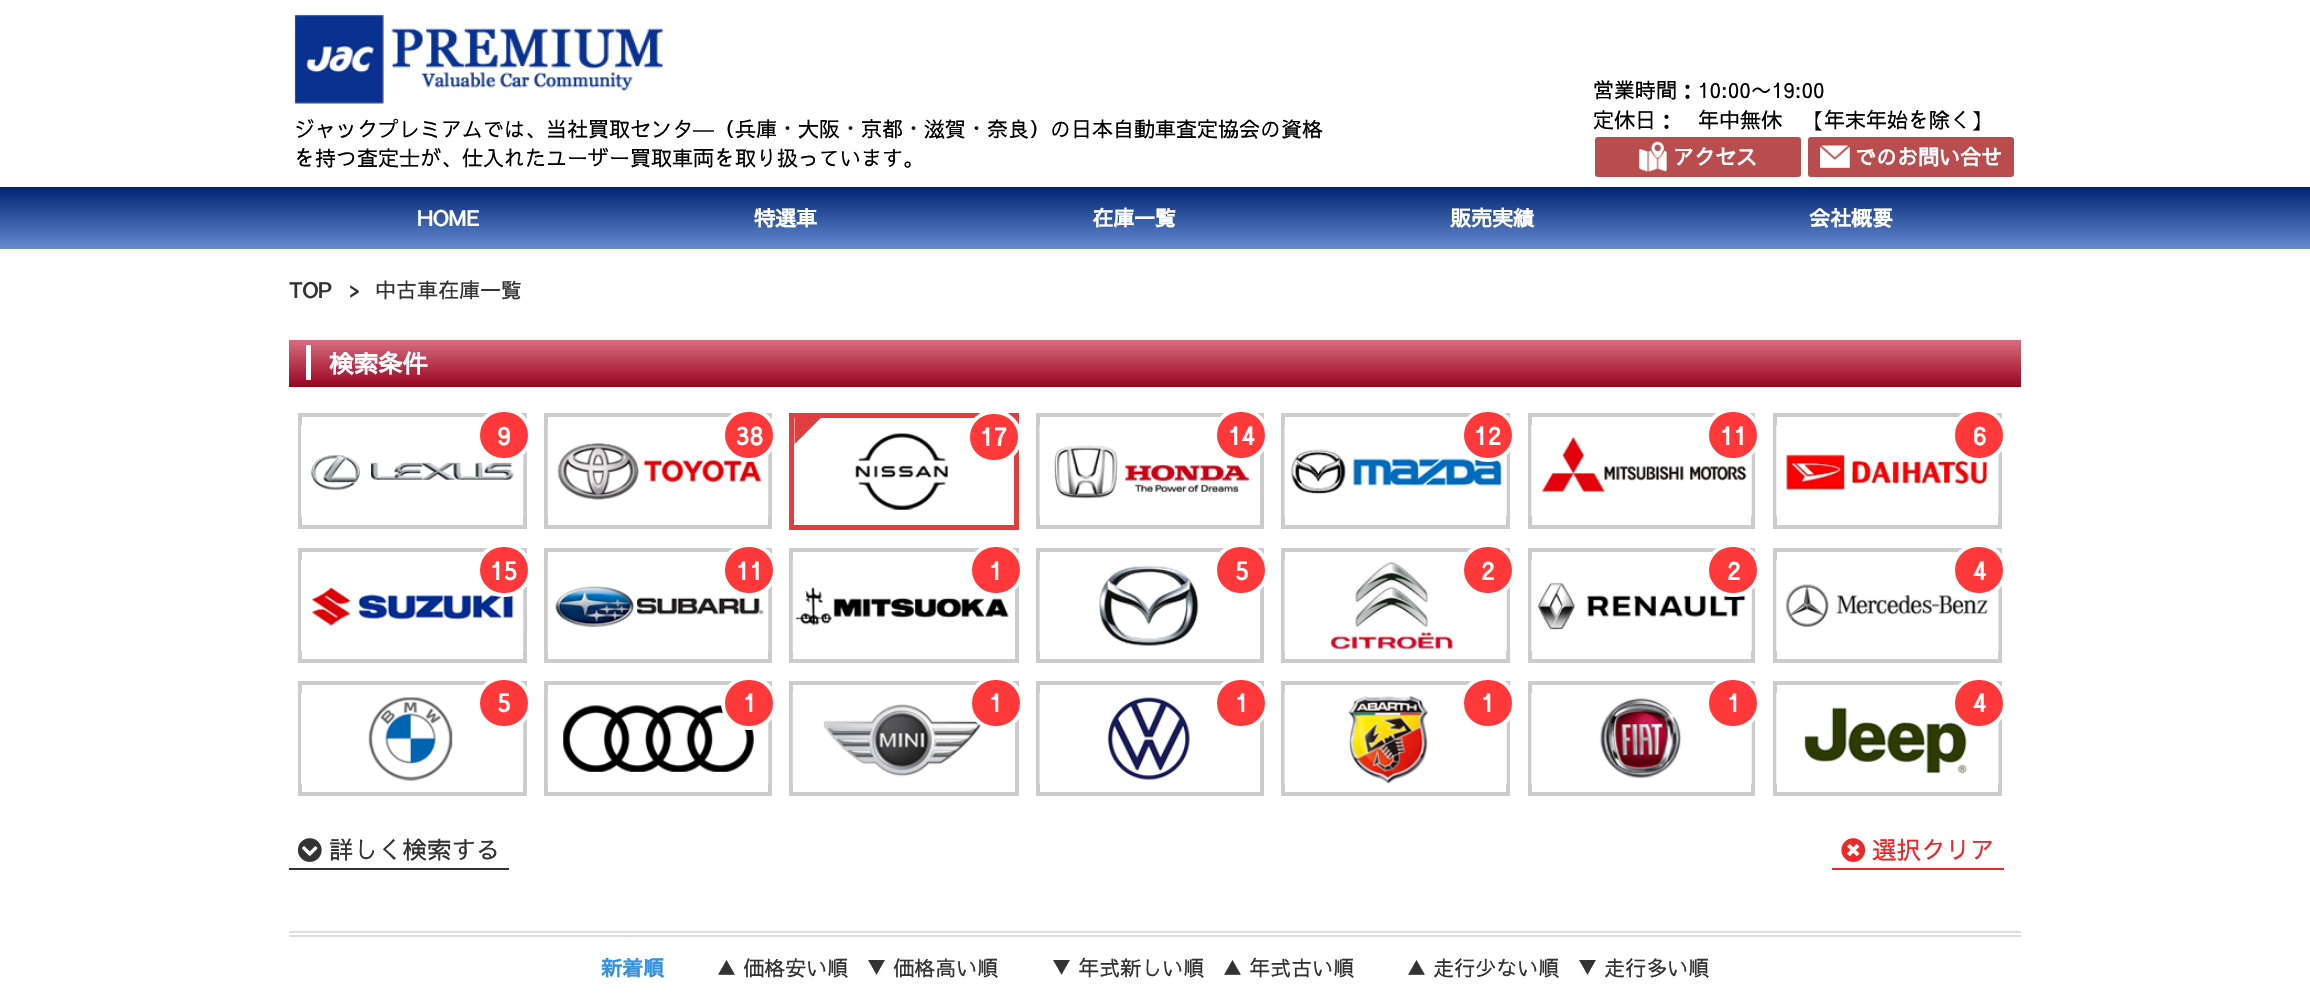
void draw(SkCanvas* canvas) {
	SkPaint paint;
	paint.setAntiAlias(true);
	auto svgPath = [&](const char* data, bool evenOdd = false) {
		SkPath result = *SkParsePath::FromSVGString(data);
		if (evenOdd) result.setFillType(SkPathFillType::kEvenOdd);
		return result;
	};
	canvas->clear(0xffffffff);
	canvas->drawImageRect(SkImages::DeferredFromEncodedData(SkData::MakeFromFileName("img1.png")), SkRect::MakeXYWH(294, 14, 369, 90), SkSamplingOptions());
	SkFont f1(fontMgr->matchFamilyStyle("Sawarabi Gothic", SkFontStyle::Normal()), 21);
	f1.setSubpixel(true);
	paint.setColor(0xff000000);
	canvas->drawString("ジャックプレミアムでは、当社買取センタ―（兵庫・大阪・京都・滋賀・奈良）の日本自動車査定協会の資格", 294, 137, f1, paint);
	canvas->drawString("を持つ査定士が、仕入れたユーザー買取車両を取り扱っています。", 294, 166, f1, paint);
	canvas->drawString("営業時間：10:00〜19:00", 1593, 98, f1, paint);
	canvas->drawString("定休日：", 1593, 128, f1, paint);
	canvas->drawString("年中無休　【年末年始を除く】", 1698, 128, f1, paint);
	paint.setColor(0xffb94d4d);
	canvas->drawRoundRect(SkRect::MakeXYWH(1594, 136, 208, 42), 4, 4, paint);
	paint.setStroke(true);
	paint.setStrokeWidth(2);
	paint.setColor(0xffffffff);
	canvas->drawRoundRect(SkRect::MakeXYWH(1594, 136, 208, 42), 4, 4, paint);
	canvas->drawImageRect(SkImages::DeferredFromEncodedData(SkData::MakeFromFileName("img2.png")), SkRect::MakeXYWH(1639, 141, 28, 31), SkSamplingOptions());
	SkFont f2(fontMgr->matchFamilyStyle("Sawarabi Gothic", SkFontStyle::Bold()), 21);
	f2.setSubpixel(true);
	paint.setStroke(false);
	canvas->drawString("アクセス", 1673, 165, f2, paint);
	paint.setColor(0xffb94d4d);
	canvas->drawRoundRect(SkRect::MakeXYWH(1807, 136, 208, 42), 4, 4, paint);
	paint.setStroke(true);
	paint.setColor(0xffffffff);
	canvas->drawRoundRect(SkRect::MakeXYWH(1807, 136, 208, 42), 4, 4, paint);
	canvas->drawImageRect(SkImages::DeferredFromEncodedData(SkData::MakeFromFileName("img3.png")), SkRect::MakeXYWH(1820, 145, 30, 23), SkSamplingOptions());
	paint.setStroke(false);
	canvas->drawString("でのお問い合せ", 1855, 165, f2, paint);
	{
		const SkColor colors[] = {0xff002374, 0xff648cce};
		const float stops[] = {0, 1};
		const SkPoint ends[] = {{1155, 187}, {1155, 249}};
		paint.setShader(SkGradientShader::MakeLinear(ends, colors, stops, 2, SkTileMode::kClamp));
		paint.setAlpha(255);
	}
	canvas->drawRect(SkRect::MakeXYWH(0, 187, 2310, 62), paint);
	paint.setShader(nullptr);
	paint.setColor(0xffffffff);
	canvas->drawString("HOME", 417, 226, f2, paint);
	canvas->drawString("特選車", 754, 226, f2, paint);
	canvas->drawString("在庫一覧", 1092, 226, f2, paint);
	canvas->drawString("販売実績", 1450, 226, f2, paint);
	canvas->drawString("会社概要", 1809, 226, f2, paint);
	paint.setColor(0xff333333);
	canvas->drawString("TOP", 289, 298, f2, paint);
	canvas->drawString(">", 349, 298, f2, paint);
	canvas->drawString("中古車在庫一覧", 375, 298, f1, paint);
	{
		const SkColor colors[] = {0xffd86d80, 0xff98041f};
		const float stops[] = {0, 1};
		const SkPoint ends[] = {{289, 340}, {289, 387}};
		paint.setShader(SkGradientShader::MakeLinear(ends, colors, stops, 2, SkTileMode::kClamp));
		paint.setAlpha(255);
	}
	canvas->drawRect(SkRect::MakeXYWH(289, 340, 1732, 47), paint);
	SkFont f3(fontMgr->matchFamilyStyle("Sawarabi Gothic", SkFontStyle::Bold()), 24.5);
	f3.setSubpixel(true);
	paint.setShader(nullptr);
	paint.setColor(0xffffffff);
	canvas->drawString("検索条件", 329, 373, f3, paint);
	canvas->drawRect(SkRect::MakeXYWH(306, 345, 5, 35), paint);
	paint.setStroke(true);
	paint.setStrokeWidth(4);
	paint.setColor(0xffcccccc);
	canvas->drawRect(SkRect::MakeXYWH(300, 415, 225, 112), paint);
	canvas->drawImageRect(SkImages::DeferredFromEncodedData(SkData::MakeFromFileName("img4.png")), SkRect::MakeXYWH(301, 425, 223, 92), SkSamplingOptions());
	paint.setStroke(false);
	paint.setColor(0xffff3939);
	canvas->drawRoundRect(SkRect::MakeXYWH(478, 410, 52, 50), 25, 25, paint);
	paint.setStroke(true);
	paint.setColor(0xffffffff);
	canvas->drawRoundRect(SkRect::MakeXYWH(478, 410, 52, 50), 25, 25, paint);
	paint.setStroke(false);
	canvas->drawString("9", 497, 445, f3, paint);
	paint.setStroke(true);
	paint.setColor(0xffcccccc);
	canvas->drawRect(SkRect::MakeXYWH(546, 415, 224, 112), paint);
	canvas->drawImageRect(SkImages::DeferredFromEncodedData(SkData::MakeFromFileName("img5.png")), SkRect::MakeXYWH(547, 425, 222, 91), SkSamplingOptions());
	paint.setStroke(false);
	paint.setColor(0xffff3939);
	canvas->drawRoundRect(SkRect::MakeXYWH(723, 410, 52, 50), 25, 25, paint);
	paint.setStroke(true);
	paint.setColor(0xffffffff);
	canvas->drawRoundRect(SkRect::MakeXYWH(723, 410, 52, 50), 25, 25, paint);
	paint.setStroke(false);
	canvas->drawString("38", 736, 445, f3, paint);
	paint.setStroke(true);
	paint.setStrokeWidth(5);
	paint.setColor(0xffe13f3f);
	canvas->drawRect(SkRect::MakeXYWH(791.5, 415.5, 225, 112), paint);
	paint.setStroke(false);
	canvas->drawPath(svgPath("M794.5 418H821L794.5 444.5Z"), paint);
	paint.setColor(0xffffffff);
	canvas->drawPath(svgPath("M821 418V444.5H794.5Z"), paint);
	canvas->drawImageRect(SkImages::DeferredFromEncodedData(SkData::MakeFromFileName("img6.png")), SkRect::MakeXYWH(855, 433, 93, 77), SkSamplingOptions());
	paint.setColor(0xffff3939);
	canvas->drawRoundRect(SkRect::MakeXYWH(968, 412, 52, 50), 25, 25, paint);
	paint.setStroke(true);
	paint.setStrokeWidth(4);
	paint.setColor(0xffffffff);
	canvas->drawRoundRect(SkRect::MakeXYWH(968, 412, 52, 50), 25, 25, paint);
	paint.setStroke(false);
	canvas->drawString("17", 980, 446, f3, paint);
	paint.setStroke(true);
	paint.setColor(0xffcccccc);
	canvas->drawRect(SkRect::MakeXYWH(1038, 415, 224, 112), paint);
	canvas->drawImageRect(SkImages::DeferredFromEncodedData(SkData::MakeFromFileName("img7.png")), SkRect::MakeXYWH(1039, 425, 211, 92), SkSamplingOptions());
	paint.setStroke(false);
	paint.setColor(0xffff3939);
	canvas->drawRoundRect(SkRect::MakeXYWH(1215, 410, 52, 50), 25, 25, paint);
	paint.setStroke(true);
	paint.setColor(0xffffffff);
	canvas->drawRoundRect(SkRect::MakeXYWH(1215, 410, 52, 50), 25, 25, paint);
	paint.setStroke(false);
	canvas->drawString("14", 1228, 445, f3, paint);
	paint.setStroke(true);
	paint.setColor(0xffcccccc);
	canvas->drawRect(SkRect::MakeXYWH(1283, 415, 225, 112), paint);
	canvas->drawImageRect(SkImages::DeferredFromEncodedData(SkData::MakeFromFileName("img8.png")), SkRect::MakeXYWH(1284, 425, 223, 92), SkSamplingOptions());
	paint.setStroke(false);
	paint.setColor(0xffff3939);
	canvas->drawRoundRect(SkRect::MakeXYWH(1462, 410, 52, 50), 25, 25, paint);
	paint.setStroke(true);
	paint.setColor(0xffffffff);
	canvas->drawRoundRect(SkRect::MakeXYWH(1462, 410, 52, 50), 25, 25, paint);
	paint.setStroke(false);
	canvas->drawString("12", 1474, 445, f3, paint);
	paint.setStroke(true);
	paint.setColor(0xffcccccc);
	canvas->drawRect(SkRect::MakeXYWH(1530, 415, 223, 112), paint);
	canvas->drawImageRect(SkImages::DeferredFromEncodedData(SkData::MakeFromFileName("img9.png")), SkRect::MakeXYWH(1531, 425, 221, 92), SkSamplingOptions());
	paint.setStroke(false);
	paint.setColor(0xffff3939);
	canvas->drawRoundRect(SkRect::MakeXYWH(1707, 410, 52, 50), 25, 25, paint);
	paint.setStroke(true);
	paint.setColor(0xffffffff);
	canvas->drawRoundRect(SkRect::MakeXYWH(1707, 410, 52, 50), 25, 25, paint);
	paint.setStroke(false);
	canvas->drawString("11", 1720, 445, f3, paint);
	paint.setStroke(true);
	paint.setColor(0xffcccccc);
	canvas->drawRect(SkRect::MakeXYWH(1775, 415, 225, 112), paint);
	canvas->drawImageRect(SkImages::DeferredFromEncodedData(SkData::MakeFromFileName("img10.png")), SkRect::MakeXYWH(1776, 425, 223, 92), SkSamplingOptions());
	paint.setStroke(false);
	paint.setColor(0xffff3939);
	canvas->drawRoundRect(SkRect::MakeXYWH(1953, 410, 52, 50), 25, 25, paint);
	paint.setStroke(true);
	paint.setColor(0xffffffff);
	canvas->drawRoundRect(SkRect::MakeXYWH(1953, 410, 52, 50), 25, 25, paint);
	paint.setStroke(false);
	canvas->drawString("6", 1973, 445, f3, paint);
	paint.setStroke(true);
	paint.setColor(0xffcccccc);
	canvas->drawRect(SkRect::MakeXYWH(300, 550, 225, 111), paint);
	canvas->drawImageRect(SkImages::DeferredFromEncodedData(SkData::MakeFromFileName("img11.png")), SkRect::MakeXYWH(301, 560, 223, 91), SkSamplingOptions());
	paint.setStroke(false);
	paint.setColor(0xffff3939);
	canvas->drawRoundRect(SkRect::MakeXYWH(478, 545, 52, 50), 25, 25, paint);
	paint.setStroke(true);
	paint.setColor(0xffffffff);
	canvas->drawRoundRect(SkRect::MakeXYWH(478, 545, 52, 50), 25, 25, paint);
	paint.setStroke(false);
	canvas->drawString("15", 490, 580, f3, paint);
	paint.setStroke(true);
	paint.setColor(0xffcccccc);
	canvas->drawRect(SkRect::MakeXYWH(546, 550, 224, 111), paint);
	canvas->drawImageRect(SkImages::DeferredFromEncodedData(SkData::MakeFromFileName("img12.png")), SkRect::MakeXYWH(547, 560, 222, 91), SkSamplingOptions());
	paint.setStroke(false);
	paint.setColor(0xffff3939);
	canvas->drawRoundRect(SkRect::MakeXYWH(723, 545, 52, 50), 25, 25, paint);
	paint.setStroke(true);
	paint.setColor(0xffffffff);
	canvas->drawRoundRect(SkRect::MakeXYWH(723, 545, 52, 50), 25, 25, paint);
	paint.setStroke(false);
	canvas->drawString("11", 736, 580, f3, paint);
	paint.setStroke(true);
	paint.setColor(0xffcccccc);
	canvas->drawRect(SkRect::MakeXYWH(791, 550, 226, 111), paint);
	canvas->drawImageRect(SkImages::DeferredFromEncodedData(SkData::MakeFromFileName("img13.png")), SkRect::MakeXYWH(792, 560, 217, 91), SkSamplingOptions());
	paint.setStroke(false);
	paint.setColor(0xffff3939);
	canvas->drawRoundRect(SkRect::MakeXYWH(970, 545, 52, 50), 25, 25, paint);
	paint.setStroke(true);
	paint.setColor(0xffffffff);
	canvas->drawRoundRect(SkRect::MakeXYWH(970, 545, 52, 50), 25, 25, paint);
	paint.setStroke(false);
	canvas->drawString("1", 989, 580, f3, paint);
	paint.setStroke(true);
	paint.setColor(0xffcccccc);
	canvas->drawRect(SkRect::MakeXYWH(1038, 550, 224, 111), paint);
	canvas->drawImageRect(SkImages::DeferredFromEncodedData(SkData::MakeFromFileName("img14.png")), SkRect::MakeXYWH(1039, 560, 160, 91), SkSamplingOptions());
	paint.setStroke(false);
	paint.setColor(0xffff3939);
	canvas->drawRoundRect(SkRect::MakeXYWH(1215, 545, 52, 50), 25, 25, paint);
	paint.setStroke(true);
	paint.setColor(0xffffffff);
	canvas->drawRoundRect(SkRect::MakeXYWH(1215, 545, 52, 50), 25, 25, paint);
	paint.setStroke(false);
	canvas->drawString("5", 1235, 580, f3, paint);
	paint.setStroke(true);
	paint.setColor(0xffcccccc);
	canvas->drawRect(SkRect::MakeXYWH(1283, 550, 225, 111), paint);
	canvas->drawImageRect(SkImages::DeferredFromEncodedData(SkData::MakeFromFileName("img15.png")), SkRect::MakeXYWH(1284, 560, 223, 91), SkSamplingOptions());
	paint.setStroke(false);
	paint.setColor(0xffff3939);
	canvas->drawRoundRect(SkRect::MakeXYWH(1462, 545, 52, 50), 25, 25, paint);
	paint.setStroke(true);
	paint.setColor(0xffffffff);
	canvas->drawRoundRect(SkRect::MakeXYWH(1462, 545, 52, 50), 25, 25, paint);
	paint.setStroke(false);
	canvas->drawString("2", 1481, 580, f3, paint);
	paint.setStroke(true);
	paint.setColor(0xffcccccc);
	canvas->drawRect(SkRect::MakeXYWH(1530, 550, 223, 111), paint);
	canvas->drawImageRect(SkImages::DeferredFromEncodedData(SkData::MakeFromFileName("img16.png")), SkRect::MakeXYWH(1531, 560, 221, 91), SkSamplingOptions());
	paint.setStroke(false);
	paint.setColor(0xffff3939);
	canvas->drawRoundRect(SkRect::MakeXYWH(1707, 545, 52, 50), 25, 25, paint);
	paint.setStroke(true);
	paint.setColor(0xffffffff);
	canvas->drawRoundRect(SkRect::MakeXYWH(1707, 545, 52, 50), 25, 25, paint);
	paint.setStroke(false);
	canvas->drawString("2", 1727, 580, f3, paint);
	paint.setStroke(true);
	paint.setColor(0xffcccccc);
	canvas->drawRect(SkRect::MakeXYWH(1775, 550, 225, 111), paint);
	canvas->drawImageRect(SkImages::DeferredFromEncodedData(SkData::MakeFromFileName("img17.png")), SkRect::MakeXYWH(1776, 560, 223, 91), SkSamplingOptions());
	paint.setStroke(false);
	paint.setColor(0xffff3939);
	canvas->drawRoundRect(SkRect::MakeXYWH(1953, 545, 52, 50), 25, 25, paint);
	paint.setStroke(true);
	paint.setColor(0xffffffff);
	canvas->drawRoundRect(SkRect::MakeXYWH(1953, 545, 52, 50), 25, 25, paint);
	paint.setStroke(false);
	canvas->drawString("4", 1973, 580, f3, paint);
	paint.setStroke(true);
	paint.setColor(0xffcccccc);
	canvas->drawRect(SkRect::MakeXYWH(300, 683, 225, 111), paint);
	canvas->drawImageRect(SkImages::DeferredFromEncodedData(SkData::MakeFromFileName("img18.png")), SkRect::MakeXYWH(301, 693, 223, 91), SkSamplingOptions());
	paint.setStroke(false);
	paint.setColor(0xffff3939);
	canvas->drawRoundRect(SkRect::MakeXYWH(478, 678, 52, 50), 25, 25, paint);
	paint.setStroke(true);
	paint.setColor(0xffffffff);
	canvas->drawRoundRect(SkRect::MakeXYWH(478, 678, 52, 50), 25, 25, paint);
	paint.setStroke(false);
	canvas->drawString("5", 497, 712, f3, paint);
	paint.setStroke(true);
	paint.setColor(0xffcccccc);
	canvas->drawRect(SkRect::MakeXYWH(546, 683, 224, 111), paint);
	canvas->drawImageRect(SkImages::DeferredFromEncodedData(SkData::MakeFromFileName("img19.png")), SkRect::MakeXYWH(547, 693, 222, 91), SkSamplingOptions());
	paint.setStroke(false);
	paint.setColor(0xffff3939);
	canvas->drawRoundRect(SkRect::MakeXYWH(723, 678, 52, 50), 25, 25, paint);
	paint.setStroke(true);
	paint.setColor(0xffffffff);
	canvas->drawRoundRect(SkRect::MakeXYWH(723, 678, 52, 50), 25, 25, paint);
	paint.setStroke(false);
	canvas->drawString("1", 743, 712, f3, paint);
	paint.setStroke(true);
	paint.setColor(0xffcccccc);
	canvas->drawRect(SkRect::MakeXYWH(791, 683, 226, 111), paint);
	canvas->drawImageRect(SkImages::DeferredFromEncodedData(SkData::MakeFromFileName("img20.png")), SkRect::MakeXYWH(792, 693, 189, 91), SkSamplingOptions());
	paint.setStroke(false);
	paint.setColor(0xffff3939);
	canvas->drawRoundRect(SkRect::MakeXYWH(970, 678, 52, 50), 25, 25, paint);
	paint.setStroke(true);
	paint.setColor(0xffffffff);
	canvas->drawRoundRect(SkRect::MakeXYWH(970, 678, 52, 50), 25, 25, paint);
	paint.setStroke(false);
	canvas->drawString("1", 989, 712, f3, paint);
	paint.setStroke(true);
	paint.setColor(0xffcccccc);
	canvas->drawRect(SkRect::MakeXYWH(1038, 683, 224, 111), paint);
	canvas->drawImageRect(SkImages::DeferredFromEncodedData(SkData::MakeFromFileName("img21.png")), SkRect::MakeXYWH(1039, 693, 151, 91), SkSamplingOptions());
	paint.setStroke(false);
	paint.setColor(0xffff3939);
	canvas->drawRoundRect(SkRect::MakeXYWH(1215, 678, 52, 50), 25, 25, paint);
	paint.setStroke(true);
	paint.setColor(0xffffffff);
	canvas->drawRoundRect(SkRect::MakeXYWH(1215, 678, 52, 50), 25, 25, paint);
	paint.setStroke(false);
	canvas->drawString("1", 1235, 712, f3, paint);
	paint.setStroke(true);
	paint.setColor(0xffcccccc);
	canvas->drawRect(SkRect::MakeXYWH(1283, 683, 225, 111), paint);
	canvas->drawImageRect(SkImages::DeferredFromEncodedData(SkData::MakeFromFileName("img22.png")), SkRect::MakeXYWH(1284, 693, 223, 91), SkSamplingOptions());
	paint.setStroke(false);
	paint.setColor(0xffff3939);
	canvas->drawRoundRect(SkRect::MakeXYWH(1462, 678, 52, 50), 25, 25, paint);
	paint.setStroke(true);
	paint.setColor(0xffffffff);
	canvas->drawRoundRect(SkRect::MakeXYWH(1462, 678, 52, 50), 25, 25, paint);
	paint.setStroke(false);
	canvas->drawString("1", 1481, 712, f3, paint);
	paint.setStroke(true);
	paint.setColor(0xffcccccc);
	canvas->drawRect(SkRect::MakeXYWH(1530, 683, 223, 111), paint);
	canvas->drawImageRect(SkImages::DeferredFromEncodedData(SkData::MakeFromFileName("img23.png")), SkRect::MakeXYWH(1531, 693, 221, 91), SkSamplingOptions());
	paint.setStroke(false);
	paint.setColor(0xffff3939);
	canvas->drawRoundRect(SkRect::MakeXYWH(1707, 678, 52, 50), 25, 25, paint);
	paint.setStroke(true);
	paint.setColor(0xffffffff);
	canvas->drawRoundRect(SkRect::MakeXYWH(1707, 678, 52, 50), 25, 25, paint);
	paint.setStroke(false);
	canvas->drawString("1", 1727, 712, f3, paint);
	paint.setStroke(true);
	paint.setColor(0xffcccccc);
	canvas->drawRect(SkRect::MakeXYWH(1775, 683, 225, 111), paint);
	canvas->drawImageRect(SkImages::DeferredFromEncodedData(SkData::MakeFromFileName("img24.png")), SkRect::MakeXYWH(1776, 693, 223, 91), SkSamplingOptions());
	paint.setStroke(false);
	paint.setColor(0xffff3939);
	canvas->drawRoundRect(SkRect::MakeXYWH(1953, 678, 52, 50), 25, 25, paint);
	paint.setStroke(true);
	paint.setColor(0xffffffff);
	canvas->drawRoundRect(SkRect::MakeXYWH(1953, 678, 52, 50), 25, 25, paint);
	paint.setStroke(false);
	canvas->drawString("4", 1973, 712, f3, paint);
	paint.setColor(0xff333333);
	canvas->drawRect(SkRect::MakeXYWH(289, 868, 220, 2), paint);
	canvas->drawImageRect(SkImages::DeferredFromEncodedData(SkData::MakeFromFileName("img25.png")), SkRect::MakeXYWH(297, 838, 25, 24), SkSamplingOptions());
	SkFont f4(fontMgr->matchFamilyStyle("Sawarabi Gothic", SkFontStyle::Normal()), 24.5);
	f4.setSubpixel(true);
	canvas->drawString("詳しく検索する", 329, 859, f4, paint);
	paint.setColor(0xffec2828);
	canvas->drawRect(SkRect::MakeXYWH(1832, 868, 172, 2), paint);
	canvas->drawImageRect(SkImages::DeferredFromEncodedData(SkData::MakeFromFileName("img26.png")), SkRect::MakeXYWH(1841, 838, 25, 24), SkSamplingOptions());
	canvas->drawString("選択クリア", 1872, 859, f4, paint);
	paint.setColor(0xffdddddd);
	canvas->drawRect(SkRect::MakeXYWH(289, 931, 1732, 2), paint);
	canvas->drawRect(SkRect::MakeXYWH(289, 935, 1732, 2), paint);
	paint.setColor(0xff3691de);
	canvas->drawString("新着順", 601, 976, f2, paint);
	paint.setColor(0xff333333);
	canvas->drawString("▲ 価格安い順", 716, 976, f1, paint);
	canvas->drawString("▼ 価格高い順", 866, 976, f1, paint);
	canvas->drawString("▼ 年式新しい順", 1051, 976, f1, paint);
	canvas->drawString("▲ 年式古い順", 1222, 976, f1, paint);
	canvas->drawString("▲ 走行少ない順", 1406, 976, f1, paint);
	canvas->drawString("▼ 走行多い順", 1577, 976, f1, paint);
}
